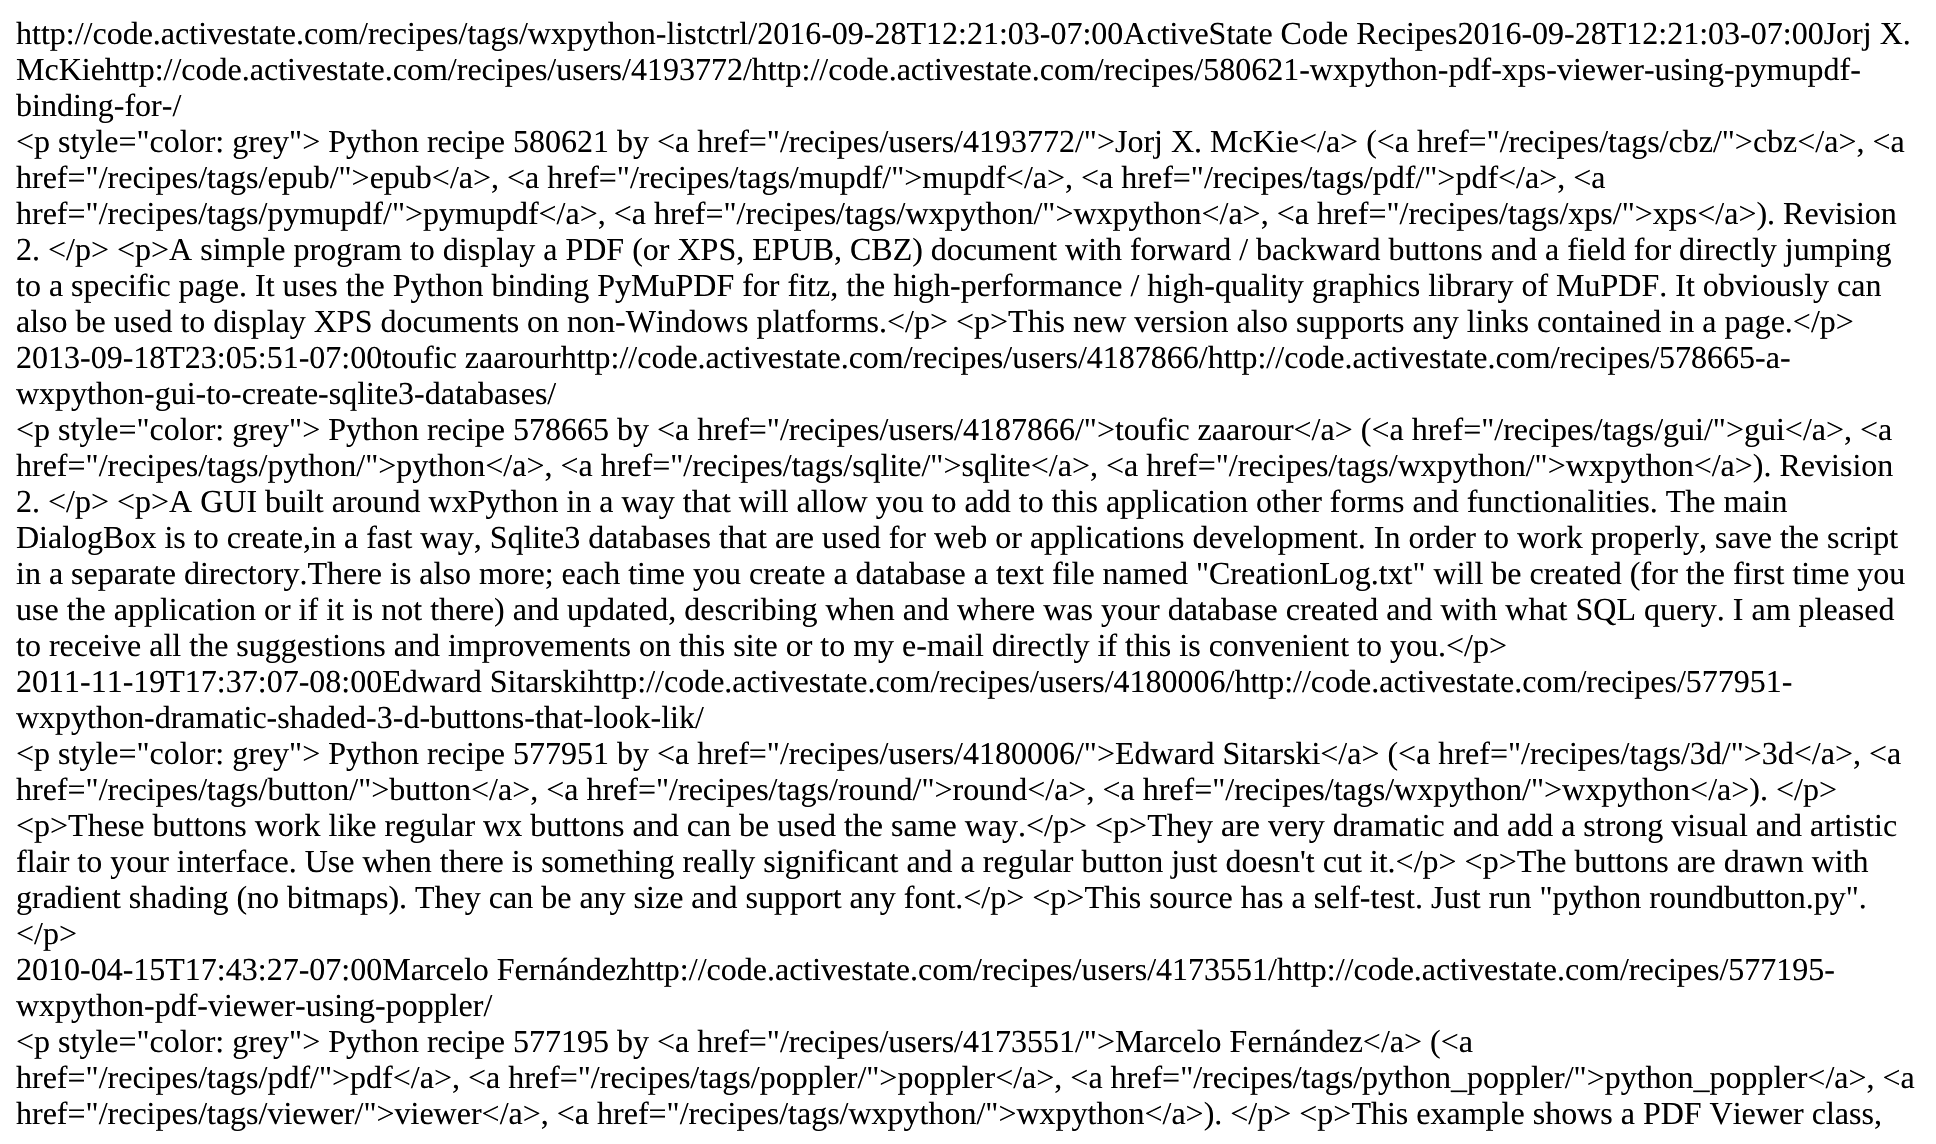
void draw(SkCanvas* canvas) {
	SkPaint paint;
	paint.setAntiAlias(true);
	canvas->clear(0xffffffff);
	SkFont f1(fontMgr->matchFamilyStyle("Liberation Serif", SkFontStyle::Normal()), 32);
	f1.setSubpixel(true);
	paint.setColor(0xff000000);
	canvas->drawString("http://code.activestate.com/recipes/tags/wxpython-listctrl/2016-09-28T12:21:03-07:00ActiveState Code Recipes2016-09-28T12:21:03-07:00Jorj X.", 16, 44, f1, paint);
	canvas->drawString("McKiehttp://code.activestate.com/recipes/users/4193772/http://code.activestate.com/recipes/580621-wxpython-pdf-xps-viewer-using-pymupdf-", 16, 80, f1, paint);
	canvas->drawString("binding-for-/", 16, 116, f1, paint);
	canvas->drawString("<p style=\"color: grey\"> Python recipe 580621 by <a href=\"/recipes/users/4193772/\">Jorj X. McKie</a> (<a href=\"/recipes/tags/cbz/\">cbz</a>, <a", 16, 152, f1, paint);
	canvas->drawString("href=\"/recipes/tags/epub/\">epub</a>, <a href=\"/recipes/tags/mupdf/\">mupdf</a>, <a href=\"/recipes/tags/pdf/\">pdf</a>, <a", 16, 188, f1, paint);
	canvas->drawString("href=\"/recipes/tags/pymupdf/\">pymupdf</a>, <a href=\"/recipes/tags/wxpython/\">wxpython</a>, <a href=\"/recipes/tags/xps/\">xps</a>). Revision", 16, 224, f1, paint);
	canvas->drawString("2. </p> <p>A simple program to display a PDF (or XPS, EPUB, CBZ) document with forward / backward buttons and a field for directly jumping", 16, 260, f1, paint);
	canvas->drawString("to a specific page. It uses the Python binding PyMuPDF for fitz, the high-performance / high-quality graphics library of MuPDF. It obviously can", 16, 296, f1, paint);
	canvas->drawString("also be used to display XPS documents on non-Windows platforms.</p> <p>This new version also supports any links contained in a page.</p>", 16, 332, f1, paint);
	canvas->drawString("2013-09-18T23:05:51-07:00toufic zaarourhttp://code.activestate.com/recipes/users/4187866/http://code.activestate.com/recipes/578665-a-", 16, 368, f1, paint);
	canvas->drawString("wxpython-gui-to-create-sqlite3-databases/", 16, 404, f1, paint);
	canvas->drawString("<p style=\"color: grey\"> Python recipe 578665 by <a href=\"/recipes/users/4187866/\">toufic zaarour</a> (<a href=\"/recipes/tags/gui/\">gui</a>, <a", 16, 440, f1, paint);
	canvas->drawString("href=\"/recipes/tags/python/\">python</a>, <a href=\"/recipes/tags/sqlite/\">sqlite</a>, <a href=\"/recipes/tags/wxpython/\">wxpython</a>). Revision", 16, 476, f1, paint);
	canvas->drawString("2. </p> <p>A GUI built around wxPython in a way that will allow you to add to this application other forms and functionalities. The main", 16, 512, f1, paint);
	canvas->drawString("DialogBox is to create,in a fast way, Sqlite3 databases that are used for web or applications development. In order to work properly, save the script", 16, 548, f1, paint);
	canvas->drawString("in a separate directory.There is also more; each time you create a database a text file named \"CreationLog.txt\" will be created (for the first time you", 16, 584, f1, paint);
	canvas->drawString("use the application or if it is not there) and updated, describing when and where was your database created and with what SQL query. I am pleased", 16, 620, f1, paint);
	canvas->drawString("to receive all the suggestions and improvements on this site or to my e-mail directly if this is convenient to you.</p>", 16, 656, f1, paint);
	canvas->drawString("2011-11-19T17:37:07-08:00Edward Sitarskihttp://code.activestate.com/recipes/users/4180006/http://code.activestate.com/recipes/577951-", 16, 692, f1, paint);
	canvas->drawString("wxpython-dramatic-shaded-3-d-buttons-that-look-lik/", 16, 728, f1, paint);
	canvas->drawString("<p style=\"color: grey\"> Python recipe 577951 by <a href=\"/recipes/users/4180006/\">Edward Sitarski</a> (<a href=\"/recipes/tags/3d/\">3d</a>, <a", 16, 764, f1, paint);
	canvas->drawString("href=\"/recipes/tags/button/\">button</a>, <a href=\"/recipes/tags/round/\">round</a>, <a href=\"/recipes/tags/wxpython/\">wxpython</a>). </p>", 16, 800, f1, paint);
	canvas->drawString("<p>These buttons work like regular wx buttons and can be used the same way.</p> <p>They are very dramatic and add a strong visual and artistic", 16, 836, f1, paint);
	canvas->drawString("flair to your interface. Use when there is something really significant and a regular button just doesn't cut it.</p> <p>The buttons are drawn with", 16, 872, f1, paint);
	canvas->drawString("gradient shading (no bitmaps). They can be any size and support any font.</p> <p>This source has a self-test. Just run \"python roundbutton.py\".", 16, 908, f1, paint);
	canvas->drawString("</p>", 16, 944, f1, paint);
	canvas->drawString("2010-04-15T17:43:27-07:00Marcelo Fernándezhttp://code.activestate.com/recipes/users/4173551/http://code.activestate.com/recipes/577195-", 16, 980, f1, paint);
	canvas->drawString("wxpython-pdf-viewer-using-poppler/", 16, 1016, f1, paint);
	canvas->drawString("<p style=\"color: grey\"> Python recipe 577195 by <a href=\"/recipes/users/4173551/\">Marcelo Fernández</a> (<a", 16, 1052, f1, paint);
	canvas->drawString("href=\"/recipes/tags/pdf/\">pdf</a>, <a href=\"/recipes/tags/poppler/\">poppler</a>, <a href=\"/recipes/tags/python_poppler/\">python_poppler</a>, <a", 16, 1088, f1, paint);
	canvas->drawString("href=\"/recipes/tags/viewer/\">viewer</a>, <a href=\"/recipes/tags/wxpython/\">wxpython</a>). </p> <p>This example shows a PDF Viewer class,", 16, 1124, f1, paint);
}
